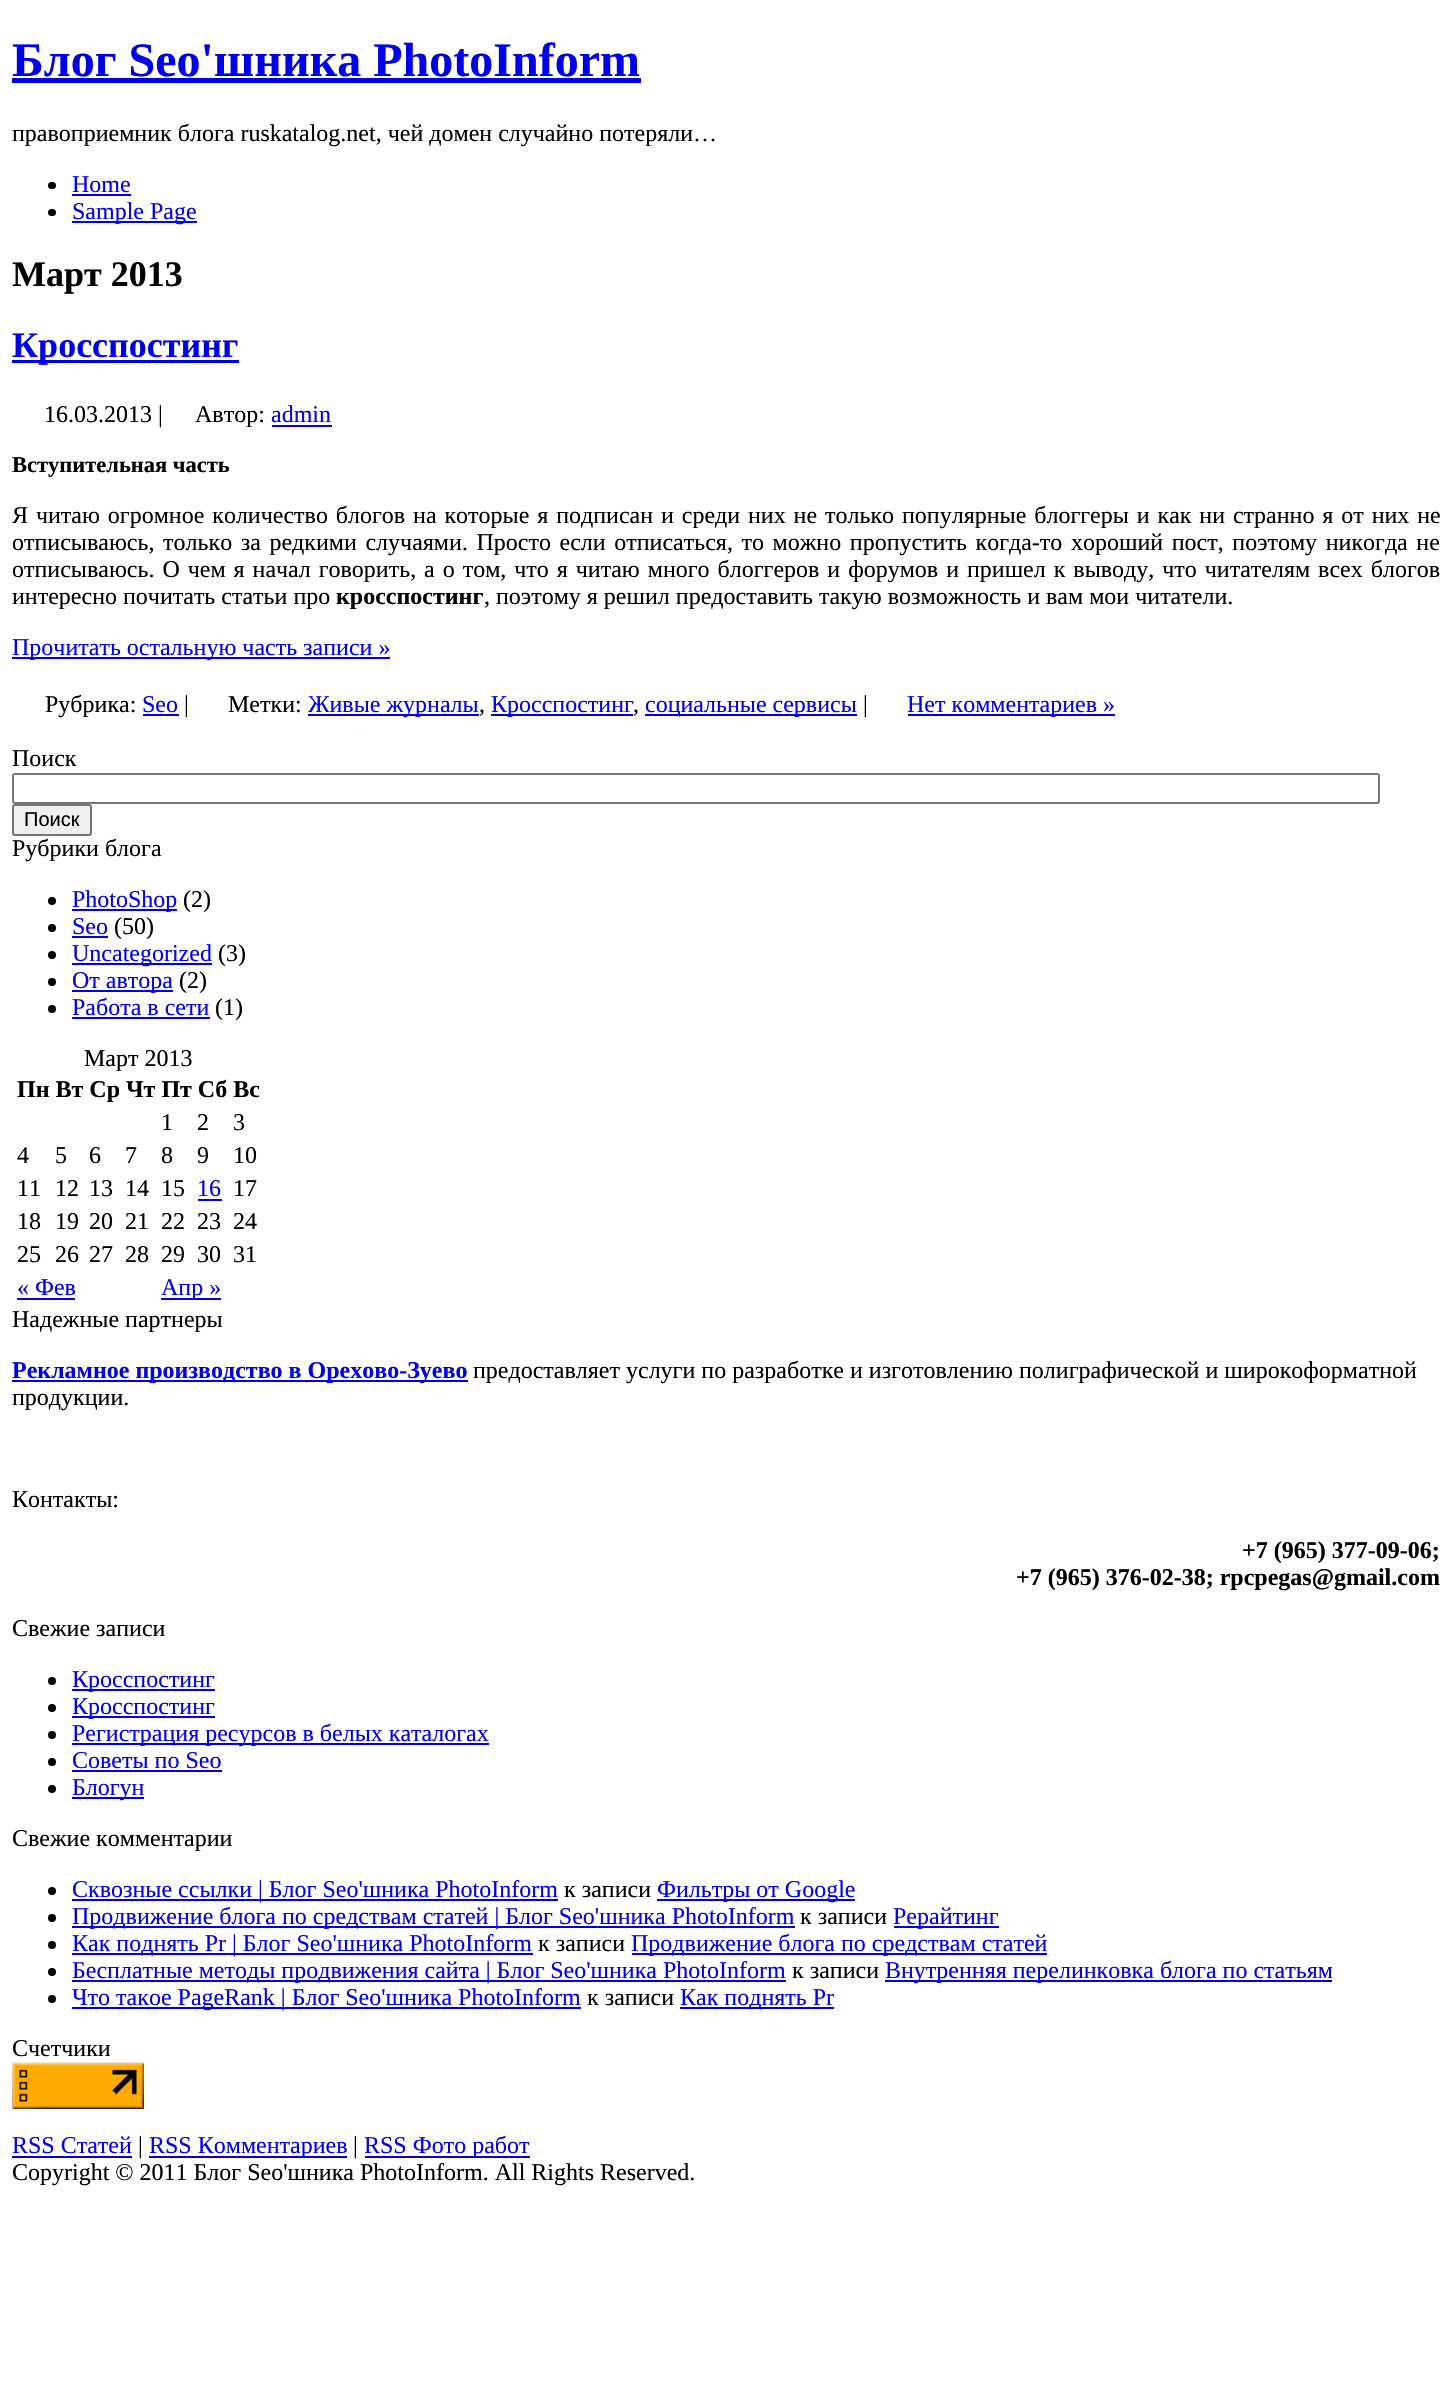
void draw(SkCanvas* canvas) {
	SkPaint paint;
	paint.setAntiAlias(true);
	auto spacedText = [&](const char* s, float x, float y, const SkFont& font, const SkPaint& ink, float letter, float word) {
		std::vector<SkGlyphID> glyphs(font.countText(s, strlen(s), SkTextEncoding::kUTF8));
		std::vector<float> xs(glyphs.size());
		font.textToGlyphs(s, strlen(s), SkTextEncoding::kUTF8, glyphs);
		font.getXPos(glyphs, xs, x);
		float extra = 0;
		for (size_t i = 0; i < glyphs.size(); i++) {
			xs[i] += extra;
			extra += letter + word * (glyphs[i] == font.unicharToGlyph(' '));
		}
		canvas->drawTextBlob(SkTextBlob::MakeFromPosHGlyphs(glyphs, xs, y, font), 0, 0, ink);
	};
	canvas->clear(0xffffffff);
	SkFont f1(fontMgr->matchFamilyStyle("Liberation Serif", SkFontStyle::Bold()), 48);
	f1.setSubpixel(true);
	paint.setColor(0xff0000ee);
	canvas->drawString("Блог Seo'шника PhotoInform", 12, 76, f1, paint);
	canvas->drawRect(SkRect::MakeXYWH(12, 78, 629, 5), paint);
	SkFont f2(fontMgr->matchFamilyStyle("Liberation Serif", SkFontStyle::Normal()), 24);
	f2.setSubpixel(true);
	paint.setColor(0xff000000);
	canvas->drawString("правоприемник блога ruskatalog.net, чей домен случайно потеряли…", 12, 141, f2, paint);
	canvas->drawRoundRect(SkRect::MakeXYWH(48, 182, 8, 7), 3.5, 3.5, paint);
	paint.setColor(0xff0000ee);
	canvas->drawString("Home", 72, 192, f2, paint);
	canvas->drawRect(SkRect::MakeXYWH(72, 194, 59, 2), paint);
	paint.setColor(0xff000000);
	canvas->drawRoundRect(SkRect::MakeXYWH(48, 209, 8, 7), 3.5, 3.5, paint);
	paint.setColor(0xff0000ee);
	canvas->drawRect(SkRect::MakeXYWH(72, 221, 125, 2), paint);
	canvas->drawString("Sample Page", 72, 219, f2, paint);
	SkFont f3(fontMgr->matchFamilyStyle("Liberation Serif", SkFontStyle::Bold()), 36);
	f3.setSubpixel(true);
	paint.setColor(0xff000000);
	canvas->drawString("Март 2013", 12, 286, f3, paint);
	paint.setColor(0xff0000ee);
	canvas->drawRect(SkRect::MakeXYWH(12, 360, 227, 3), paint);
	canvas->drawString("Кросспостинг", 12, 357, f3, paint);
	paint.setColor(0xff000000);
	canvas->drawString("16.03.2013 |", 44, 422, f2, paint);
	canvas->drawString("Автор:", 195, 422, f2, paint);
	paint.setColor(0xff0000ee);
	canvas->drawString("admin", 271, 422, f2, paint);
	canvas->drawRect(SkRect::MakeXYWH(272, 425, 60, 2), paint);
	SkFont f4(fontMgr->matchFamilyStyle("Liberation Serif", SkFontStyle::Bold()), 22.5);
	f4.setSubpixel(true);
	paint.setColor(0xff000000);
	canvas->drawString("Вступительная часть", 12, 472, f4, paint);
	spacedText("Я читаю огромное количество блогов на которые я подписан и среди них не только популярные блоггеры и как ни странно я от них не", 12, 523, f2, paint, 0, 1.9);
	spacedText("отписываюсь, только за редкими случаями. Просто если отписаться, то можно пропустить когда-то хороший пост, поэтому никогда не", 12, 550, f2, paint, 0, 2.6);
	spacedText("отписываюсь. О чем я начал говорить, а о том, что я читаю много блоггеров и форумов и пришел к выводу, что читателям всех блогов", 12, 577, f2, paint, 0, 1.95);
	canvas->drawString("интересно почитать статьи про", 12, 604, f2, paint);
	SkFont f5(fontMgr->matchFamilyStyle("Liberation Serif", SkFontStyle::Bold()), 24);
	f5.setSubpixel(true);
	canvas->drawString("кросспостинг", 336, 604, f5, paint);
	canvas->drawString(", поэтому я решил предоставить такую возможность и вам мои читатели.", 484, 604, f2, paint);
	paint.setColor(0xff0000ee);
	canvas->drawRect(SkRect::MakeXYWH(12, 657, 378, 2), paint);
	canvas->drawString("Прочитать остальную часть записи »", 12, 655, f2, paint);
	paint.setColor(0xff000000);
	canvas->drawString("Рубрика:", 45, 712, f2, paint);
	paint.setColor(0xff0000ee);
	canvas->drawString("Seo", 142, 712, f2, paint);
	canvas->drawRect(SkRect::MakeXYWH(143, 714, 36, 2), paint);
	paint.setColor(0xff000000);
	canvas->drawString("|", 184, 712, f2, paint);
	canvas->drawString("Метки:", 228, 712, f2, paint);
	paint.setColor(0xff0000ee);
	canvas->drawRect(SkRect::MakeXYWH(308, 714, 171, 2), paint);
	canvas->drawString("Живые журналы", 308, 712, f2, paint);
	paint.setColor(0xff000000);
	canvas->drawString(",", 479, 712, f2, paint);
	paint.setColor(0xff0000ee);
	canvas->drawRect(SkRect::MakeXYWH(491, 714, 142, 2), paint);
	canvas->drawString("Кросспостинг", 491, 712, f2, paint);
	paint.setColor(0xff000000);
	canvas->drawString(",", 633, 712, f2, paint);
	paint.setColor(0xff0000ee);
	canvas->drawRect(SkRect::MakeXYWH(645, 714, 212, 2), paint);
	canvas->drawString("социальные сервисы", 645, 712, f2, paint);
	paint.setColor(0xff000000);
	canvas->drawString("|", 863, 712, f2, paint);
	paint.setColor(0xff0000ee);
	canvas->drawRect(SkRect::MakeXYWH(908, 714, 207, 2), paint);
	canvas->drawString("Нет комментариев »", 907, 712, f2, paint);
	paint.setColor(0xff000000);
	canvas->drawString("Поиск", 12, 766, f2, paint);
	paint.setStroke(true);
	paint.setStrokeWidth(2);
	paint.setColor(0xff767676);
	canvas->drawRoundRect(SkRect::MakeXYWH(13, 774, 1366, 29), 2, 2, paint);
	paint.setStroke(false);
	paint.setColor(0xffefefef);
	canvas->drawRoundRect(SkRect::MakeXYWH(13, 805, 78, 30), 2, 2, paint);
	paint.setStroke(true);
	paint.setColor(0xff767676);
	canvas->drawRoundRect(SkRect::MakeXYWH(13, 805, 78, 30), 2, 2, paint);
	SkFont f6(fontMgr->matchFamilyStyle("Liberation Sans", SkFontStyle::Normal()), 20);
	f6.setSubpixel(true);
	paint.setStroke(false);
	paint.setColor(0xff000000);
	canvas->drawString("Поиск", 24, 826, f6, paint);
	canvas->drawString("Рубрики блога", 12, 856, f2, paint);
	canvas->drawCircle(52, 901, 4, paint);
	paint.setColor(0xff0000ee);
	canvas->drawRect(SkRect::MakeXYWH(72, 909, 105, 2), paint);
	canvas->drawString("PhotoShop", 72, 907, f2, paint);
	paint.setColor(0xff000000);
	canvas->drawString("(2)", 183, 907, f2, paint);
	canvas->drawCircle(52, 928, 4, paint);
	paint.setColor(0xff0000ee);
	canvas->drawString("Seo", 72, 934, f2, paint);
	canvas->drawRect(SkRect::MakeXYWH(72, 936, 36, 2), paint);
	paint.setColor(0xff000000);
	canvas->drawString("(50)", 114, 934, f2, paint);
	canvas->drawCircle(52, 955, 4, paint);
	paint.setColor(0xff0000ee);
	canvas->drawRect(SkRect::MakeXYWH(72, 963, 140, 2), paint);
	canvas->drawString("Uncategorized", 72, 961, f2, paint);
	paint.setColor(0xff000000);
	canvas->drawString("(3)", 218, 961, f2, paint);
	canvas->drawCircle(52, 982, 4, paint);
	paint.setColor(0xff0000ee);
	canvas->drawRect(SkRect::MakeXYWH(72, 990, 101, 2), paint);
	canvas->drawString("От автора", 72, 988, f2, paint);
	paint.setColor(0xff000000);
	canvas->drawString("(2)", 179, 988, f2, paint);
	canvas->drawCircle(52, 1009, 4, paint);
	paint.setColor(0xff0000ee);
	canvas->drawString("Работа в сети", 72, 1015, f2, paint);
	canvas->drawRect(SkRect::MakeXYWH(72, 1017, 138, 2), paint);
	paint.setColor(0xff000000);
	canvas->drawString("(1)", 215, 1015, f2, paint);
	canvas->drawString("Март 2013", 84, 1066, f2, paint);
	canvas->drawString("Пн Вт Ср Чт Пт Сб Вс", 17, 1097, f5, paint);
	canvas->drawString("1", 161, 1130, f2, paint);
	canvas->drawString("2", 197, 1130, f2, paint);
	canvas->drawString("3", 233, 1130, f2, paint);
	canvas->drawString("4", 17, 1163, f2, paint);
	canvas->drawString("5", 55, 1163, f2, paint);
	canvas->drawString("6", 89, 1163, f2, paint);
	canvas->drawString("7", 125, 1163, f2, paint);
	canvas->drawString("8", 161, 1163, f2, paint);
	canvas->drawString("9", 197, 1163, f2, paint);
	canvas->drawString("10", 233, 1163, f2, paint);
	canvas->drawString("11", 17, 1196, f2, paint);
	canvas->drawString("12", 55, 1196, f2, paint);
	canvas->drawString("13", 89, 1196, f2, paint);
	canvas->drawString("14", 125, 1196, f2, paint);
	canvas->drawString("15", 161, 1196, f2, paint);
	paint.setColor(0xff0000ee);
	canvas->drawString("16", 197, 1196, f2, paint);
	canvas->drawRect(SkRect::MakeXYWH(198, 1199, 24, 2), paint);
	paint.setColor(0xff000000);
	canvas->drawString("17", 233, 1196, f2, paint);
	canvas->drawString("18", 17, 1229, f2, paint);
	canvas->drawString("19", 55, 1229, f2, paint);
	canvas->drawString("20", 89, 1229, f2, paint);
	canvas->drawString("21", 125, 1229, f2, paint);
	canvas->drawString("22", 161, 1229, f2, paint);
	canvas->drawString("23", 197, 1229, f2, paint);
	canvas->drawString("24", 233, 1229, f2, paint);
	canvas->drawString("25", 17, 1262, f2, paint);
	canvas->drawString("26", 55, 1262, f2, paint);
	canvas->drawString("27", 89, 1262, f2, paint);
	canvas->drawString("28", 125, 1262, f2, paint);
	canvas->drawString("29", 161, 1262, f2, paint);
	canvas->drawString("30", 197, 1262, f2, paint);
	canvas->drawString("31", 233, 1262, f2, paint);
	paint.setColor(0xff0000ee);
	canvas->drawString("« Фев", 17, 1295, f2, paint);
	canvas->drawRect(SkRect::MakeXYWH(17, 1298, 58, 2), paint);
	canvas->drawRect(SkRect::MakeXYWH(161, 1298, 60, 2), paint);
	canvas->drawString("Апр »", 161, 1295, f2, paint);
	paint.setColor(0xff000000);
	canvas->drawString("Надежные партнеры", 12, 1327, f2, paint);
	paint.setColor(0xff0000ee);
	canvas->drawRect(SkRect::MakeXYWH(12, 1380, 456, 2), paint);
	canvas->drawString("Рекламное производство в Орехово-Зуево", 12, 1378, f5, paint);
	paint.setColor(0xff000000);
	canvas->drawString("предоставляет услуги по разработке и изготовлению полиграфической и широкоформатной", 473, 1378, f2, paint);
	canvas->drawString("продукции.", 12, 1405, f2, paint);
	canvas->drawString("Контакты:", 12, 1507, f2, paint);
	canvas->drawString("+7 (965) 377-09-06;", 1242, 1558, f5, paint);
	canvas->drawString("+7 (965) 376-02-38; rpcpegas@gmail.com", 1016, 1585, f5, paint);
	canvas->drawString("Свежие записи", 12, 1636, f2, paint);
	canvas->drawCircle(52, 1681, 4, paint);
	paint.setColor(0xff0000ee);
	canvas->drawRect(SkRect::MakeXYWH(72, 1689, 143, 2), paint);
	canvas->drawString("Кросспостинг", 72, 1687, f2, paint);
	paint.setColor(0xff000000);
	canvas->drawCircle(52, 1708, 4, paint);
	paint.setColor(0xff0000ee);
	canvas->drawRect(SkRect::MakeXYWH(72, 1716, 143, 2), paint);
	canvas->drawString("Кросспостинг", 72, 1714, f2, paint);
	paint.setColor(0xff000000);
	canvas->drawCircle(52, 1735, 4, paint);
	paint.setColor(0xff0000ee);
	canvas->drawRect(SkRect::MakeXYWH(72, 1743, 417, 2), paint);
	canvas->drawString("Регистрация ресурсов в белых каталогах", 72, 1741, f2, paint);
	paint.setColor(0xff000000);
	canvas->drawCircle(52, 1762, 4, paint);
	paint.setColor(0xff0000ee);
	canvas->drawString("Советы по Seo", 72, 1768, f2, paint);
	canvas->drawRect(SkRect::MakeXYWH(72, 1770, 150, 2), paint);
	paint.setColor(0xff000000);
	canvas->drawCircle(52, 1789, 4, paint);
	paint.setColor(0xff0000ee);
	canvas->drawRect(SkRect::MakeXYWH(72, 1797, 72, 2), paint);
	canvas->drawString("Блогун", 72, 1795, f2, paint);
	paint.setColor(0xff000000);
	canvas->drawString("Свежие комментарии", 12, 1846, f2, paint);
	canvas->drawCircle(52, 1891, 4, paint);
	paint.setColor(0xff0000ee);
	canvas->drawRect(SkRect::MakeXYWH(72, 1899, 486, 2), paint);
	canvas->drawString("Сквозные ссылки | Блог Seo'шника PhotoInform", 72, 1897, f2, paint);
	paint.setColor(0xff000000);
	canvas->drawString("к записи", 564, 1897, f2, paint);
	paint.setColor(0xff0000ee);
	canvas->drawRect(SkRect::MakeXYWH(657, 1899, 198, 2), paint);
	canvas->drawString("Фильтры от Google", 657, 1897, f2, paint);
	paint.setColor(0xff000000);
	canvas->drawCircle(52, 1918, 4, paint);
	paint.setColor(0xff0000ee);
	canvas->drawRect(SkRect::MakeXYWH(72, 1926, 723, 2), paint);
	canvas->drawString("Продвижение блога по средствам статей | Блог Seo'шника PhotoInform", 72, 1924, f2, paint);
	paint.setColor(0xff000000);
	canvas->drawString("к записи", 800, 1924, f2, paint);
	paint.setColor(0xff0000ee);
	canvas->drawRect(SkRect::MakeXYWH(894, 1926, 105, 2), paint);
	canvas->drawString("Рерайтинг", 893, 1924, f2, paint);
	paint.setColor(0xff000000);
	canvas->drawCircle(52, 1945, 4, paint);
	paint.setColor(0xff0000ee);
	canvas->drawRect(SkRect::MakeXYWH(72, 1953, 461, 2), paint);
	canvas->drawString("Как поднять Pr | Блог Seo'шника PhotoInform", 72, 1951, f2, paint);
	paint.setColor(0xff000000);
	canvas->drawString("к записи", 538, 1951, f2, paint);
	paint.setColor(0xff0000ee);
	canvas->drawRect(SkRect::MakeXYWH(632, 1953, 415, 2), paint);
	canvas->drawString("Продвижение блога по средствам статей", 631, 1951, f2, paint);
	paint.setColor(0xff000000);
	canvas->drawCircle(52, 1972, 4, paint);
	paint.setColor(0xff0000ee);
	canvas->drawRect(SkRect::MakeXYWH(72, 1980, 714, 2), paint);
	canvas->drawString("Бесплатные методы продвижения сайта | Блог Seo'шника PhotoInform", 72, 1978, f2, paint);
	paint.setColor(0xff000000);
	canvas->drawString("к записи", 792, 1978, f2, paint);
	paint.setColor(0xff0000ee);
	canvas->drawRect(SkRect::MakeXYWH(885, 1980, 447, 2), paint);
	canvas->drawString("Внутренняя перелинковка блога по статьям", 885, 1978, f2, paint);
	paint.setColor(0xff000000);
	canvas->drawCircle(52, 1999, 4, paint);
	paint.setColor(0xff0000ee);
	canvas->drawRect(SkRect::MakeXYWH(72, 2007, 509, 2), paint);
	canvas->drawString("Что такое PageRank | Блог Seo'шника PhotoInform", 72, 2005, f2, paint);
	paint.setColor(0xff000000);
	canvas->drawString("к записи", 587, 2005, f2, paint);
	paint.setColor(0xff0000ee);
	canvas->drawRect(SkRect::MakeXYWH(680, 2007, 154, 2), paint);
	canvas->drawString("Как поднять Pr", 680, 2005, f2, paint);
	paint.setColor(0xff000000);
	canvas->drawString("Счетчики", 12, 2056, f2, paint);
	canvas->drawImageRect(SkImages::DeferredFromEncodedData(SkData::MakeFromFileName("img1.png")), SkRect::MakeXYWH(12, 2062, 132, 47), SkSamplingOptions());
	paint.setColor(0xff0000ee);
	canvas->drawString("RSS Статей", 12, 2153, f2, paint);
	canvas->drawRect(SkRect::MakeXYWH(12, 2156, 120, 2), paint);
	paint.setColor(0xff000000);
	canvas->drawString("|", 138, 2153, f2, paint);
	paint.setColor(0xff0000ee);
	canvas->drawRect(SkRect::MakeXYWH(149, 2156, 198, 2), paint);
	canvas->drawString("RSS Комментариев", 149, 2153, f2, paint);
	paint.setColor(0xff000000);
	canvas->drawString("|", 353, 2153, f2, paint);
	paint.setColor(0xff0000ee);
	canvas->drawRect(SkRect::MakeXYWH(365, 2156, 165, 2), paint);
	canvas->drawString("RSS Фото работ", 364, 2153, f2, paint);
	paint.setColor(0xff000000);
	canvas->drawString("Copyright © 2011 Блог Seo'шника PhotoInform. All Rights Reserved.", 12, 2180, f2, paint);
}
